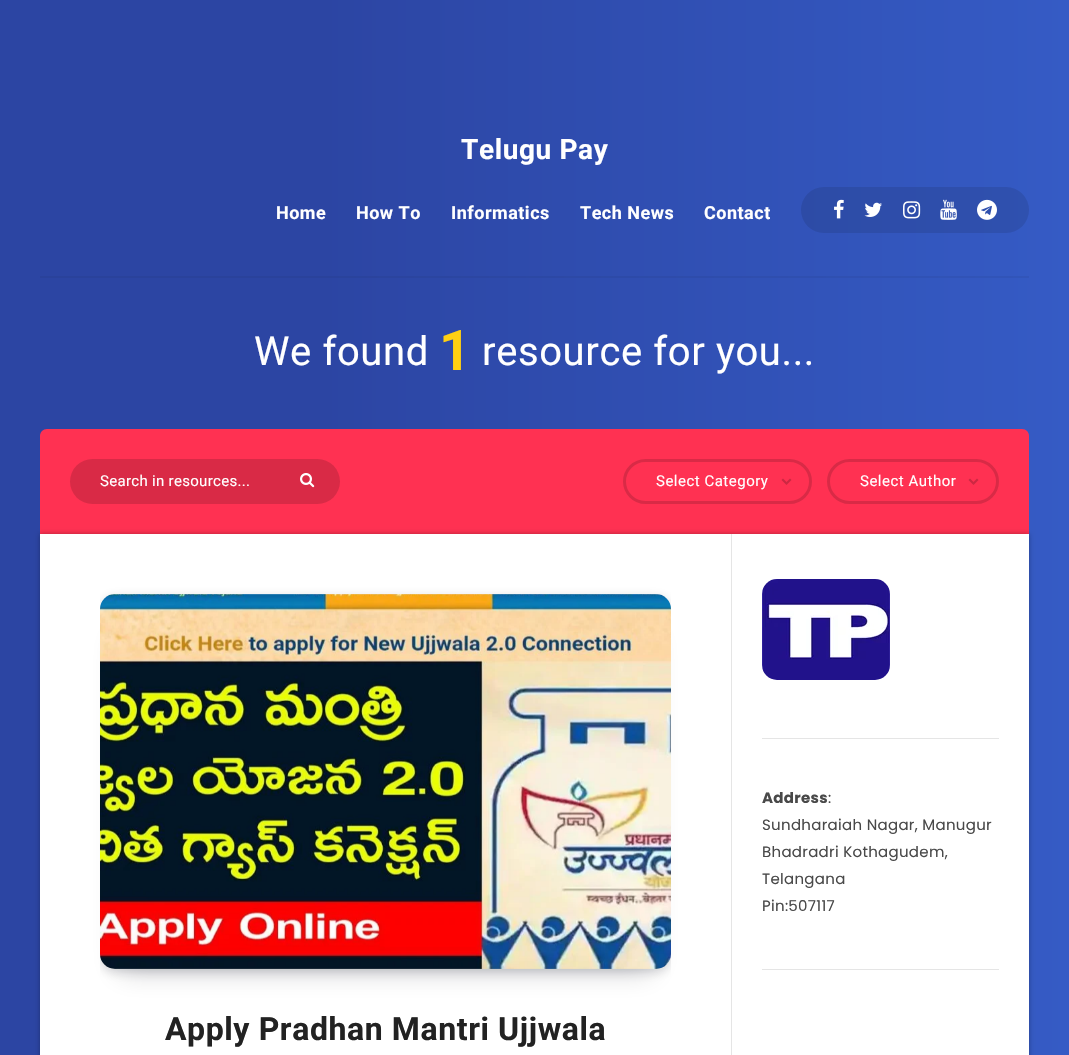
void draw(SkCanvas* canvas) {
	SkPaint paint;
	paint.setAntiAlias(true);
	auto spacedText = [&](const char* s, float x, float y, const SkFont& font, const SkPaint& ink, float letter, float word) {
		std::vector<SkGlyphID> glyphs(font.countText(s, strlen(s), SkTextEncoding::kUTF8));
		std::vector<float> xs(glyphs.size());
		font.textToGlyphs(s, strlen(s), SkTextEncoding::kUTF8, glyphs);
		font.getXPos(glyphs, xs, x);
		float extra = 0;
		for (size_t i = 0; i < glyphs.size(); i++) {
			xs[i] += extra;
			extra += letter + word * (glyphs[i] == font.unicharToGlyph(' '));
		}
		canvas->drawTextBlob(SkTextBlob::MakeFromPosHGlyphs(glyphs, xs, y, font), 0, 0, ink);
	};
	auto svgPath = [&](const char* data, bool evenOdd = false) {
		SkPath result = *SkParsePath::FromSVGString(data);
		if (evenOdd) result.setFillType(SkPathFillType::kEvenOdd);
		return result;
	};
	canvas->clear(0xffffffff);
	{
		const SkColor colors[] = {0xff2c45a3, 0xff355bc5};
		const float stops[] = {0.3, 1};
		const SkPoint ends[] = {{0, 528}, {1069, 528}};
		paint.setShader(SkGradientShader::MakeLinear(ends, colors, stops, 2, SkTileMode::kClamp));
		paint.setAlpha(255);
	}
	canvas->drawRect(SkRect::MakeXYWH(0, 0, 1069, 1055), paint);
	{
		const SkColor colors[] = {0xff2a429b, 0xff3256bb};
		const float stops[] = {0.3, 1};
		const SkPoint ends[] = {{0, 528}, {1069, 528}};
		paint.setShader(SkGradientShader::MakeLinear(ends, colors, stops, 2, SkTileMode::kClamp));
		paint.setAlpha(255);
	}
	canvas->drawRect(SkRect::MakeXYWH(40, 276, 989, 2), paint);
	SkFont f1(fontMgr->matchFamilyStyle("Roboto", SkFontStyle::Bold()), 28);
	f1.setSubpixel(true);
	paint.setShader(nullptr);
	paint.setColor(0xffffffff);
	spacedText("Telugu Pay", 461, 159, f1, paint, 0.6, 0);
	SkFont f2(fontMgr->matchFamilyStyle("Roboto", SkFontStyle::Bold()), 18);
	f2.setSubpixel(true);
	spacedText("Home", 276, 219, f2, paint, 0.5, 0);
	spacedText("How To", 356, 219, f2, paint, 0.5, 0);
	spacedText("Informatics", 451, 219, f2, paint, 0.5, 0);
	spacedText("Tech News", 580, 219, f2, paint, 0.5, 0);
	spacedText("Contact", 704, 219, f2, paint, 0.5, 0);
	paint.setColor(0x1a000000);
	canvas->drawRoundRect(SkRect::MakeXYWH(801, 187, 228, 46), 23, 23, paint);
	canvas->drawImageRect(SkImages::DeferredFromEncodedData(SkData::MakeFromFileName("img1.png")), SkRect::MakeXYWH(834, 199, 10, 20), SkSamplingOptions());
	canvas->drawImageRect(SkImages::DeferredFromEncodedData(SkData::MakeFromFileName("img2.png")), SkRect::MakeXYWH(864, 202, 18, 15), SkSamplingOptions());
	canvas->drawImageRect(SkImages::DeferredFromEncodedData(SkData::MakeFromFileName("img3.png")), SkRect::MakeXYWH(903, 201, 18, 18), SkSamplingOptions());
	canvas->drawImageRect(SkImages::DeferredFromEncodedData(SkData::MakeFromFileName("img4.png")), SkRect::MakeXYWH(940, 199, 17, 21), SkSamplingOptions());
	canvas->drawImageRect(SkImages::DeferredFromEncodedData(SkData::MakeFromFileName("img5.png")), SkRect::MakeXYWH(977, 199, 20, 21), SkSamplingOptions());
	SkFont f3(fontMgr->matchFamilyStyle("Roboto", SkFontStyle::Normal()), 40);
	f3.setSubpixel(true);
	paint.setColor(0xffffffff);
	spacedText("We found", 254, 365, f3, paint, 0.6, 0);
	SkFont f4(fontMgr->matchFamilyStyle("Roboto", SkFontStyle::Bold()), 56);
	f4.setSubpixel(true);
	paint.setColor(0xffffd012);
	spacedText("1", 439, 370, f4, paint, 0.6, 0);
	paint.setColor(0xffffffff);
	spacedText("resource for you...", 482, 365, f3, paint, 0.6, 0);
	paint.setColor(0xffff3152);
	canvas->drawPath(svgPath("M47 429H1022C1026 429 1029 432 1029 436V534H40V436C40 432 43 429 47 429Z"), paint);
	paint.setColor(0xffd92a46);
	canvas->drawRoundRect(SkRect::MakeXYWH(70, 459, 270, 45), 22.5, 22.5, paint);
	SkFont f5(fontMgr->matchFamilyStyle("Roboto", SkFontStyle::Normal()), 15);
	f5.setSubpixel(true);
	paint.setColor(0xffffffff);
	spacedText("Search in resources...", 100, 486, f5, paint, 0.3, 0);
	canvas->drawImageRect(SkImages::DeferredFromEncodedData(SkData::MakeFromFileName("img6.png")), SkRect::MakeXYWH(300, 473, 15, 15), SkSamplingOptions());
	paint.setStroke(true);
	paint.setStrokeWidth(3);
	paint.setColor(0xffd92a46);
	canvas->drawRoundRect(SkRect::MakeXYWH(624.5, 460.5, 186, 42), 21, 21, paint);
	paint.setStroke(false);
	paint.setColor(0xffffffff);
	spacedText("Select Category", 656, 486, f5, paint, 0.5, 0);
	paint.setColor(0xffcc2742);
	canvas->drawPath(svgPath("M791.5 480L786.5 485V482L790 478.5Z"), paint);
	paint.setColor(0x33000000);
	canvas->drawPath(svgPath("M786.5 485L781.5 480L783 478.5L786.5 482Z"), paint);
	paint.setStroke(true);
	paint.setColor(0xffd92a46);
	canvas->drawRoundRect(SkRect::MakeXYWH(828.5, 460.5, 169, 42), 21, 21, paint);
	paint.setStroke(false);
	paint.setColor(0xffffffff);
	spacedText("Select Author", 860, 486, f5, paint, 0.5, 0);
	paint.setColor(0xffcc2742);
	canvas->drawPath(svgPath("M978.5 480L973.5 485V482L977 478.5Z"), paint);
	paint.setColor(0x33000000);
	canvas->drawPath(svgPath("M973.5 485L968.5 480L970 478.5L973.5 482Z"), paint);
	paint.setColor(0x4d000000);
	paint.setMaskFilter(SkMaskFilter::MakeBlur(kNormal_SkBlurStyle, 2.5));
	canvas->drawRect(SkRect::MakeXYWH(40, 534, 989, 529), paint);
	paint.setMaskFilter(nullptr);
	paint.setColor(0xffffffff);
	canvas->drawRect(SkRect::MakeXYWH(40, 534, 989, 521), paint);
	paint.setColor(0xffe5e5e5);
	canvas->drawRect(SkRect::MakeXYWH(762, 738, 237, 1), paint);
	canvas->drawImageRect(SkImages::DeferredFromEncodedData(SkData::MakeFromFileName("img7.png")), SkRect::MakeXYWH(762, 579, 128, 101), SkSamplingOptions());
	canvas->drawRect(SkRect::MakeXYWH(762, 969, 237, 1), paint);
	SkFont f6(fontMgr->matchFamilyStyle("Poppins", SkFontStyle::Bold()), 15);
	f6.setSubpixel(true);
	paint.setColor(0xff494949);
	spacedText("Address", 762, 803, f6, paint, 0.3, 0);
	SkFont f7(fontMgr->matchFamilyStyle("Poppins", SkFontStyle::Normal()), 15);
	f7.setSubpixel(true);
	spacedText(":", 828, 803, f7, paint, 0.3, 0);
	spacedText("Sundharaiah Nagar, Manugur", 762, 830, f7, paint, 0.3, 0);
	spacedText("Bhadradri Kothagudem,", 762, 857, f7, paint, 0.3, 0);
	spacedText("Telangana", 762, 884, f7, paint, 0.3, 0);
	spacedText("Pin:507117", 762, 911, f7, paint, 0.3, 0);
	paint.setColor(0xffe5e5e5);
	canvas->drawRect(SkRect::MakeXYWH(731, 534, 1, 521), paint);
	paint.setColor(0x33070a19);
	paint.setMaskFilter(SkMaskFilter::MakeBlur(kNormal_SkBlurStyle, 13.5));
	canvas->drawRect(SkRect::MakeXYWH(120, 636, 531, 335), paint);
	paint.setMaskFilter(nullptr);
	canvas->save();
	canvas->clipRect(SkRect::MakeXYWH(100, 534, 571, 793));
	paint.setMaskFilter(SkMaskFilter::MakeBlur(kNormal_SkBlurStyle, 6));
	canvas->drawRoundRect(SkRect::MakeXYWH(101, 598, 569, 373), 14, 14, paint);
	paint.setMaskFilter(nullptr);
	canvas->restore();
	canvas->drawImageRect(SkImages::DeferredFromEncodedData(SkData::MakeFromFileName("img8.png")), SkRect::MakeXYWH(100, 594, 571, 375), SkSamplingOptions());
	SkFont f8(fontMgr->matchFamilyStyle("Roboto", SkFontStyle::Bold()), 32);
	f8.setSubpixel(true);
	paint.setColor(0xff222222);
	spacedText("Apply Pradhan Mantri Ujjwala", 165, 1040, f8, paint, 0.6, 0);
}
